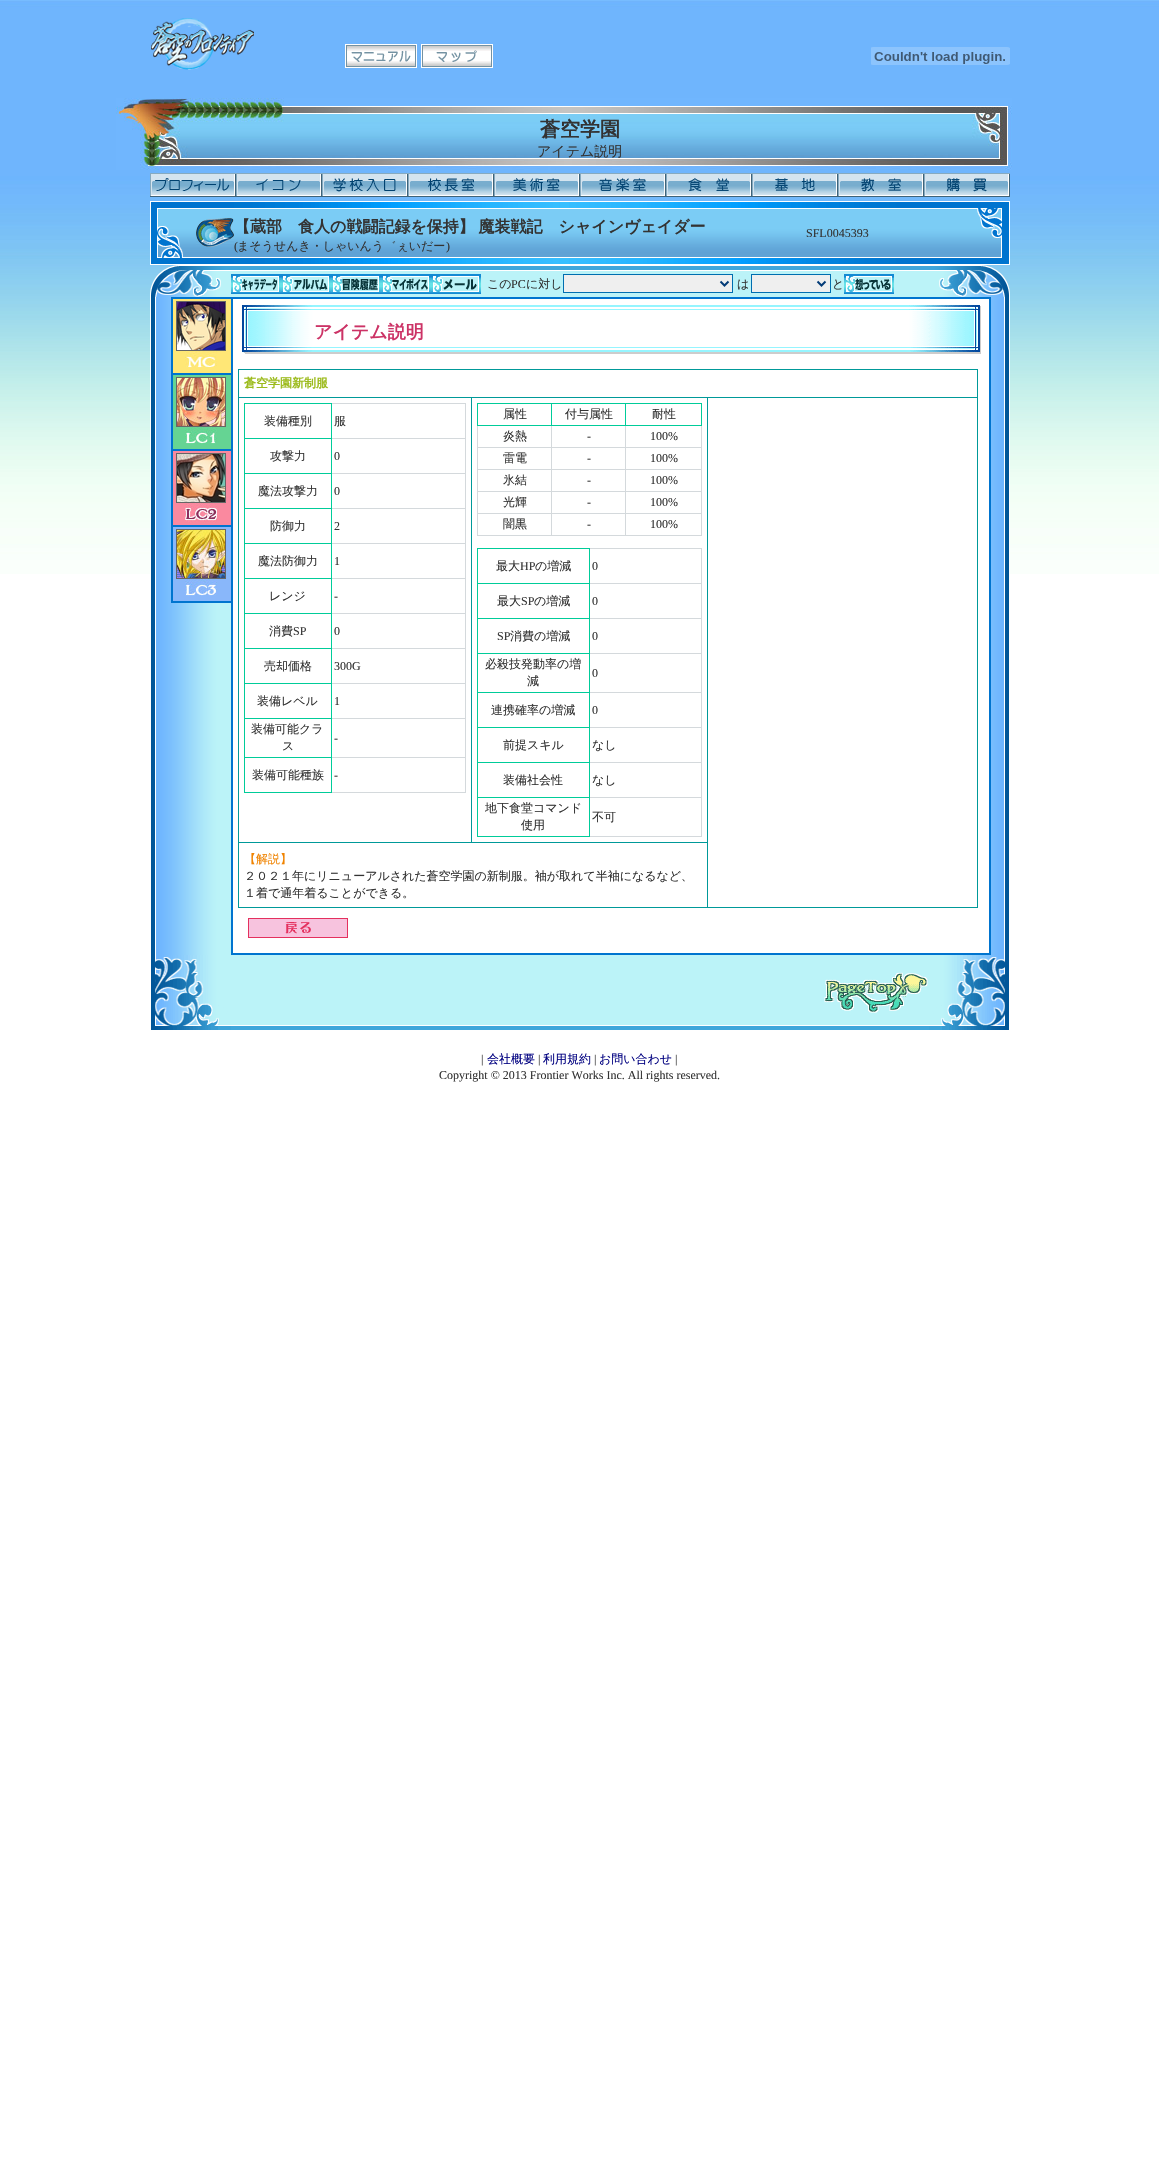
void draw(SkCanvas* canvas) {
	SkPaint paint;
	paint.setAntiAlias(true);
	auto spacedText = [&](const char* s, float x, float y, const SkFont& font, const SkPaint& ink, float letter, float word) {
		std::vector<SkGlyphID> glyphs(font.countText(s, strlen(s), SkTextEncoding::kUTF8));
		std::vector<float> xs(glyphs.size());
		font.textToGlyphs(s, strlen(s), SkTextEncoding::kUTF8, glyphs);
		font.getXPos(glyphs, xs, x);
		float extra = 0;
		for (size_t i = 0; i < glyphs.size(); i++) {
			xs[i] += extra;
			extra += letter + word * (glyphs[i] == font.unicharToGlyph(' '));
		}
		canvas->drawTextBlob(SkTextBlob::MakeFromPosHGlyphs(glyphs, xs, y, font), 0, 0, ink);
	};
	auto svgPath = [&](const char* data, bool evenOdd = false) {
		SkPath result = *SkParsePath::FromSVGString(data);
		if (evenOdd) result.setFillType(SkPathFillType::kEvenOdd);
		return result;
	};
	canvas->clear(0xffffffff);
	canvas->drawImageRect(SkImages::DeferredFromEncodedData(SkData::MakeFromFileName("img1.png")), SkRect::MakeXYWH(0, 0, 1159, 574), SkSamplingOptions());
	canvas->drawImageRect(SkImages::DeferredFromEncodedData(SkData::MakeFromFileName("img2.png")), SkRect::MakeXYWH(151, 18, 103, 52), SkSamplingOptions());
	canvas->drawImageRect(SkImages::DeferredFromEncodedData(SkData::MakeFromFileName("img3.png")), SkRect::MakeXYWH(345, 44, 72, 24), SkSamplingOptions());
	canvas->drawImageRect(SkImages::DeferredFromEncodedData(SkData::MakeFromFileName("img4.png")), SkRect::MakeXYWH(421, 44, 72, 24), SkSamplingOptions());
	canvas->drawImageRect(SkImages::DeferredFromEncodedData(SkData::MakeFromFileName("img5.png")), SkRect::MakeXYWH(871, 47, 139, 18), SkSamplingOptions());
	canvas->drawImageRect(SkImages::DeferredFromEncodedData(SkData::MakeFromFileName("img6.png")), SkRect::MakeXYWH(116, 98, 896, 72), SkSamplingOptions());
	SkFont f1(fontMgr->matchFamilyStyle("WenQuanYi Zen Hei", SkFontStyle::Bold()), 20);
	f1.setSubpixel(true);
	paint.setColor(0xff333333);
	canvas->drawString("蒼空学園", 540, 136, f1, paint);
	SkFont f2(fontMgr->matchFamilyStyle("WenQuanYi Zen Hei", SkFontStyle(500, SkFontStyle::kNormal_Width, SkFontStyle::kUpright_Slant)), 14);
	f2.setSubpixel(true);
	canvas->drawString("アイテム説明", 537, 156, f2, paint);
	canvas->drawImageRect(SkImages::DeferredFromEncodedData(SkData::MakeFromFileName("img7.png")), SkRect::MakeXYWH(150, 173, 86, 24), SkSamplingOptions());
	canvas->drawImageRect(SkImages::DeferredFromEncodedData(SkData::MakeFromFileName("img8.png")), SkRect::MakeXYWH(236, 173, 86, 24), SkSamplingOptions());
	canvas->drawImageRect(SkImages::DeferredFromEncodedData(SkData::MakeFromFileName("img9.png")), SkRect::MakeXYWH(322, 173, 86, 24), SkSamplingOptions());
	canvas->drawImageRect(SkImages::DeferredFromEncodedData(SkData::MakeFromFileName("img10.png")), SkRect::MakeXYWH(408, 173, 86, 24), SkSamplingOptions());
	canvas->drawImageRect(SkImages::DeferredFromEncodedData(SkData::MakeFromFileName("img11.png")), SkRect::MakeXYWH(494, 173, 86, 24), SkSamplingOptions());
	canvas->drawImageRect(SkImages::DeferredFromEncodedData(SkData::MakeFromFileName("img12.png")), SkRect::MakeXYWH(580, 173, 86, 24), SkSamplingOptions());
	canvas->drawImageRect(SkImages::DeferredFromEncodedData(SkData::MakeFromFileName("img13.png")), SkRect::MakeXYWH(666, 173, 86, 24), SkSamplingOptions());
	canvas->drawImageRect(SkImages::DeferredFromEncodedData(SkData::MakeFromFileName("img14.png")), SkRect::MakeXYWH(752, 173, 86, 24), SkSamplingOptions());
	canvas->drawImageRect(SkImages::DeferredFromEncodedData(SkData::MakeFromFileName("img15.png")), SkRect::MakeXYWH(838, 173, 86, 24), SkSamplingOptions());
	canvas->drawImageRect(SkImages::DeferredFromEncodedData(SkData::MakeFromFileName("img16.png")), SkRect::MakeXYWH(924, 173, 86, 24), SkSamplingOptions());
	canvas->drawImageRect(SkImages::DeferredFromEncodedData(SkData::MakeFromFileName("img17.png")), SkRect::MakeXYWH(150, 201, 46, 64), SkSamplingOptions());
	canvas->drawImageRect(SkImages::DeferredFromEncodedData(SkData::MakeFromFileName("img18.png")), SkRect::MakeXYWH(196, 201, 38, 64), SkSamplingOptions());
	canvas->drawImageRect(SkImages::DeferredFromEncodedData(SkData::MakeFromFileName("img19.png")), SkRect::MakeXYWH(234, 201, 572, 64), SkSamplingOptions());
	SkFont f3(fontMgr->matchFamilyStyle("WenQuanYi Zen Hei", SkFontStyle::Bold()), 16);
	f3.setSubpixel(true);
	spacedText("【蔵部　食人の戦闘記録を保持】 魔装戦記　シャインヴェイダー", 234, 232, f3, paint, 0, -1);
	SkFont f4(fontMgr->matchFamilyStyle("Liberation Serif", SkFontStyle::Normal()), 12);
	f4.setSubpixel(true);
	canvas->drawString("(", 234, 250, f4, paint);
	SkFont f5(fontMgr->matchFamilyStyle("WenQuanYi Zen Hei", SkFontStyle(500, SkFontStyle::kNormal_Width, SkFontStyle::kUpright_Slant)), 12);
	f5.setSubpixel(true);
	canvas->drawString("まそうせんき・しゃいんう゛ぇいだー", 237, 250, f5, paint);
	canvas->drawString(")", 446, 250, f4, paint);
	canvas->drawImageRect(SkImages::DeferredFromEncodedData(SkData::MakeFromFileName("img20.png")), SkRect::MakeXYWH(806, 201, 84, 64), SkSamplingOptions());
	canvas->drawString("SFL0045393", 806, 237, f4, paint);
	canvas->drawImageRect(SkImages::DeferredFromEncodedData(SkData::MakeFromFileName("img21.png")), SkRect::MakeXYWH(890, 201, 80, 64), SkSamplingOptions());
	canvas->drawImageRect(SkImages::DeferredFromEncodedData(SkData::MakeFromFileName("img22.png")), SkRect::MakeXYWH(970, 201, 40, 64), SkSamplingOptions());
	canvas->drawImageRect(SkImages::DeferredFromEncodedData(SkData::MakeFromFileName("img23.png")), SkRect::MakeXYWH(150, 267, 19, 30), SkSamplingOptions());
	canvas->drawImageRect(SkImages::DeferredFromEncodedData(SkData::MakeFromFileName("img24.png")), SkRect::MakeXYWH(169, 265, 62, 32), SkSamplingOptions());
	canvas->drawImageRect(SkImages::DeferredFromEncodedData(SkData::MakeFromFileName("img25.png")), SkRect::MakeXYWH(231, 265, 698, 32), SkSamplingOptions());
	canvas->drawImageRect(SkImages::DeferredFromEncodedData(SkData::MakeFromFileName("img26.png")), SkRect::MakeXYWH(231, 274, 50, 20), SkSamplingOptions());
	canvas->drawImageRect(SkImages::DeferredFromEncodedData(SkData::MakeFromFileName("img27.png")), SkRect::MakeXYWH(281, 274, 50, 20), SkSamplingOptions());
	canvas->drawImageRect(SkImages::DeferredFromEncodedData(SkData::MakeFromFileName("img28.png")), SkRect::MakeXYWH(331, 274, 50, 20), SkSamplingOptions());
	canvas->drawImageRect(SkImages::DeferredFromEncodedData(SkData::MakeFromFileName("img29.png")), SkRect::MakeXYWH(381, 274, 50, 20), SkSamplingOptions());
	canvas->drawImageRect(SkImages::DeferredFromEncodedData(SkData::MakeFromFileName("img30.png")), SkRect::MakeXYWH(431, 274, 50, 20), SkSamplingOptions());
	canvas->drawString("この", 487, 288, f5, paint);
	canvas->drawString("PC", 511, 288, f4, paint);
	canvas->drawString("に対し", 526, 288, f5, paint);
	paint.setColor(0xffefefef);
	canvas->drawRect(SkRect::MakeXYWH(563.5, 274.5, 169, 18), paint);
	paint.setStroke(true);
	paint.setStrokeWidth(1);
	paint.setColor(0xff006eb0);
	canvas->drawRect(SkRect::MakeXYWH(563.5, 274.5, 169, 18), paint);
	paint.setStrokeWidth(2);
	paint.setColor(0xff043c78);
	canvas->drawPath(svgPath("M720.5 281.5L724.5 285.5L728.5 281.5"), paint);
	paint.setStroke(false);
	paint.setColor(0xff333333);
	canvas->drawString("は", 737, 288, f5, paint);
	paint.setColor(0xffefefef);
	canvas->drawRect(SkRect::MakeXYWH(751.5, 274.5, 79, 18), paint);
	paint.setStroke(true);
	paint.setStrokeWidth(1);
	paint.setColor(0xff006eb0);
	canvas->drawRect(SkRect::MakeXYWH(751.5, 274.5, 79, 18), paint);
	paint.setStrokeWidth(2);
	paint.setColor(0xff043c78);
	canvas->drawPath(svgPath("M817.5 281.5L821.5 285.5L825.5 281.5"), paint);
	paint.setStroke(false);
	paint.setColor(0xff333333);
	canvas->drawString("と", 832, 288, f5, paint);
	canvas->drawImageRect(SkImages::DeferredFromEncodedData(SkData::MakeFromFileName("img31.png")), SkRect::MakeXYWH(844, 274, 50, 20), SkSamplingOptions());
	canvas->drawImageRect(SkImages::DeferredFromEncodedData(SkData::MakeFromFileName("img32.png")), SkRect::MakeXYWH(929, 265, 62, 32), SkSamplingOptions());
	canvas->drawImageRect(SkImages::DeferredFromEncodedData(SkData::MakeFromFileName("img33.png")), SkRect::MakeXYWH(991, 267, 19, 30), SkSamplingOptions());
	canvas->drawImageRect(SkImages::DeferredFromEncodedData(SkData::MakeFromFileName("img34.png")), SkRect::MakeXYWH(150, 297, 19, 658), SkSamplingOptions());
	canvas->drawImageRect(SkImages::DeferredFromEncodedData(SkData::MakeFromFileName("img35.png")), SkRect::MakeXYWH(169, 297, 62, 658), SkSamplingOptions());
	paint.setColor(0xff0074cf);
	canvas->drawRect(SkRect::MakeXYWH(171, 297, 60, 2), paint);
	canvas->drawImageRect(SkImages::DeferredFromEncodedData(SkData::MakeFromFileName("img36.png")), SkRect::MakeXYWH(171, 299, 60, 74), SkSamplingOptions());
	paint.setStroke(true);
	paint.setStrokeWidth(1);
	paint.setColor(0xff666666);
	canvas->drawRect(SkRect::MakeXYWH(176.5, 301.5, 49, 49), paint);
	canvas->drawImageRect(SkImages::DeferredFromEncodedData(SkData::MakeFromFileName("img37.png")), SkRect::MakeXYWH(177, 302, 48, 48), SkSamplingOptions());
	canvas->drawImageRect(SkImages::DeferredFromEncodedData(SkData::MakeFromFileName("img38.png")), SkRect::MakeXYWH(185, 351, 32, 17), SkSamplingOptions());
	paint.setStroke(false);
	paint.setColor(0xff0074cf);
	canvas->drawRect(SkRect::MakeXYWH(171, 373, 60, 2), paint);
	canvas->drawImageRect(SkImages::DeferredFromEncodedData(SkData::MakeFromFileName("img39.png")), SkRect::MakeXYWH(171, 375, 60, 74), SkSamplingOptions());
	paint.setStroke(true);
	paint.setColor(0xff666666);
	canvas->drawRect(SkRect::MakeXYWH(176.5, 377.5, 49, 49), paint);
	canvas->drawImageRect(SkImages::DeferredFromEncodedData(SkData::MakeFromFileName("img40.png")), SkRect::MakeXYWH(177, 378, 48, 48), SkSamplingOptions());
	canvas->drawImageRect(SkImages::DeferredFromEncodedData(SkData::MakeFromFileName("img41.png")), SkRect::MakeXYWH(185, 427, 32, 17), SkSamplingOptions());
	paint.setStroke(false);
	paint.setColor(0xff0074cf);
	canvas->drawRect(SkRect::MakeXYWH(171, 449, 60, 2), paint);
	canvas->drawImageRect(SkImages::DeferredFromEncodedData(SkData::MakeFromFileName("img42.png")), SkRect::MakeXYWH(171, 451, 60, 74), SkSamplingOptions());
	paint.setStroke(true);
	paint.setColor(0xff666666);
	canvas->drawRect(SkRect::MakeXYWH(176.5, 453.5, 49, 49), paint);
	canvas->drawImageRect(SkImages::DeferredFromEncodedData(SkData::MakeFromFileName("img43.png")), SkRect::MakeXYWH(177, 454, 48, 48), SkSamplingOptions());
	canvas->drawImageRect(SkImages::DeferredFromEncodedData(SkData::MakeFromFileName("img44.png")), SkRect::MakeXYWH(185, 503, 32, 20), SkSamplingOptions());
	paint.setStroke(false);
	paint.setColor(0xff0074cf);
	canvas->drawRect(SkRect::MakeXYWH(171, 525, 60, 2), paint);
	canvas->drawImageRect(SkImages::DeferredFromEncodedData(SkData::MakeFromFileName("img45.png")), SkRect::MakeXYWH(171, 527, 60, 74), SkSamplingOptions());
	paint.setStroke(true);
	paint.setColor(0xff666666);
	canvas->drawRect(SkRect::MakeXYWH(176.5, 529.5, 49, 49), paint);
	canvas->drawImageRect(SkImages::DeferredFromEncodedData(SkData::MakeFromFileName("img46.png")), SkRect::MakeXYWH(177, 530, 48, 48), SkSamplingOptions());
	canvas->drawImageRect(SkImages::DeferredFromEncodedData(SkData::MakeFromFileName("img47.png")), SkRect::MakeXYWH(185, 579, 32, 17), SkSamplingOptions());
	paint.setStroke(false);
	paint.setColor(0xff0074cf);
	canvas->drawRect(SkRect::MakeXYWH(171, 601, 60, 2), paint);
	canvas->drawRect(SkRect::MakeXYWH(231, 297, 760, 658), paint);
	paint.setColor(0xffffffff);
	canvas->drawRect(SkRect::MakeXYWH(233, 299, 756, 654), paint);
	canvas->drawImageRect(SkImages::DeferredFromEncodedData(SkData::MakeFromFileName("img48.png")), SkRect::MakeXYWH(242, 305, 72, 49), SkSamplingOptions());
	canvas->drawImageRect(SkImages::DeferredFromEncodedData(SkData::MakeFromFileName("img49.png")), SkRect::MakeXYWH(314, 305, 593, 49), SkSamplingOptions());
	SkFont f6(fontMgr->matchFamilyStyle("WenQuanYi Zen Hei", SkFontStyle::Bold()), 18);
	f6.setSubpixel(true);
	paint.setColor(0xffcc3366);
	canvas->drawString("アイテム説明", 314, 338, f6, paint);
	canvas->drawImageRect(SkImages::DeferredFromEncodedData(SkData::MakeFromFileName("img50.png")), SkRect::MakeXYWH(907, 305, 74, 49), SkSamplingOptions());
	paint.setColor(0xff009999);
	canvas->drawRect(SkRect::MakeXYWH(238, 369, 740, 1), paint);
	canvas->drawRect(SkRect::MakeXYWH(707, 397, 271, 1), paint);
	canvas->drawRect(SkRect::MakeXYWH(977, 397, 1, 511), paint);
	canvas->drawRect(SkRect::MakeXYWH(977, 369, 1, 29), paint);
	canvas->drawRect(SkRect::MakeXYWH(238, 907, 470, 1), paint);
	canvas->drawRect(SkRect::MakeXYWH(707, 907, 271, 1), paint);
	canvas->drawRect(SkRect::MakeXYWH(238, 842, 470, 1), paint);
	canvas->drawRect(SkRect::MakeXYWH(707, 397, 1, 511), paint);
	canvas->drawRect(SkRect::MakeXYWH(471, 397, 237, 1), paint);
	canvas->drawRect(SkRect::MakeXYWH(471, 397, 1, 446), paint);
	canvas->drawRect(SkRect::MakeXYWH(238, 397, 234, 1), paint);
	canvas->drawRect(SkRect::MakeXYWH(238, 842, 1, 66), paint);
	canvas->drawRect(SkRect::MakeXYWH(238, 397, 1, 446), paint);
	canvas->drawRect(SkRect::MakeXYWH(238, 369, 1, 29), paint);
	SkFont f7(fontMgr->matchFamilyStyle("WenQuanYi Zen Hei", SkFontStyle::Bold()), 12);
	f7.setSubpixel(true);
	paint.setColor(0xff9cbb1c);
	canvas->drawString("蒼空学園新制服", 244, 387, f7, paint);
	paint.setColor(0xffd4d9dc);
	canvas->drawRect(SkRect::MakeXYWH(331, 403, 135, 1), paint);
	paint.setColor(0xff00cc99);
	canvas->drawRect(SkRect::MakeXYWH(244, 403, 88, 1), paint);
	paint.setColor(0xffd4d9dc);
	canvas->drawRect(SkRect::MakeXYWH(465, 438, 1, 355), paint);
	canvas->drawRect(SkRect::MakeXYWH(465, 403, 1, 36), paint);
	paint.setColor(0xff00cc99);
	canvas->drawRect(SkRect::MakeXYWH(244, 438, 88, 1), paint);
	canvas->drawRect(SkRect::MakeXYWH(244, 473, 88, 1), paint);
	canvas->drawRect(SkRect::MakeXYWH(244, 508, 88, 1), paint);
	canvas->drawRect(SkRect::MakeXYWH(244, 543, 88, 1), paint);
	canvas->drawRect(SkRect::MakeXYWH(244, 578, 88, 1), paint);
	canvas->drawRect(SkRect::MakeXYWH(244, 613, 88, 1), paint);
	canvas->drawRect(SkRect::MakeXYWH(244, 648, 88, 1), paint);
	canvas->drawRect(SkRect::MakeXYWH(244, 683, 88, 1), paint);
	canvas->drawRect(SkRect::MakeXYWH(244, 718, 88, 1), paint);
	canvas->drawRect(SkRect::MakeXYWH(244, 757, 88, 1), paint);
	paint.setColor(0xffd4d9dc);
	canvas->drawRect(SkRect::MakeXYWH(331, 792, 135, 1), paint);
	paint.setColor(0xff00cc99);
	canvas->drawRect(SkRect::MakeXYWH(331, 757, 1, 36), paint);
	paint.setColor(0xffd4d9dc);
	canvas->drawRect(SkRect::MakeXYWH(331, 757, 135, 1), paint);
	paint.setColor(0xff00cc99);
	canvas->drawRect(SkRect::MakeXYWH(331, 718, 1, 40), paint);
	paint.setColor(0xffd4d9dc);
	canvas->drawRect(SkRect::MakeXYWH(331, 718, 135, 1), paint);
	paint.setColor(0xff00cc99);
	canvas->drawRect(SkRect::MakeXYWH(331, 683, 1, 36), paint);
	paint.setColor(0xffd4d9dc);
	canvas->drawRect(SkRect::MakeXYWH(331, 683, 135, 1), paint);
	paint.setColor(0xff00cc99);
	canvas->drawRect(SkRect::MakeXYWH(331, 648, 1, 36), paint);
	paint.setColor(0xffd4d9dc);
	canvas->drawRect(SkRect::MakeXYWH(331, 648, 135, 1), paint);
	paint.setColor(0xff00cc99);
	canvas->drawRect(SkRect::MakeXYWH(331, 613, 1, 36), paint);
	paint.setColor(0xffd4d9dc);
	canvas->drawRect(SkRect::MakeXYWH(331, 613, 135, 1), paint);
	paint.setColor(0xff00cc99);
	canvas->drawRect(SkRect::MakeXYWH(331, 578, 1, 36), paint);
	paint.setColor(0xffd4d9dc);
	canvas->drawRect(SkRect::MakeXYWH(331, 578, 135, 1), paint);
	paint.setColor(0xff00cc99);
	canvas->drawRect(SkRect::MakeXYWH(331, 543, 1, 36), paint);
	paint.setColor(0xffd4d9dc);
	canvas->drawRect(SkRect::MakeXYWH(331, 543, 135, 1), paint);
	paint.setColor(0xff00cc99);
	canvas->drawRect(SkRect::MakeXYWH(331, 508, 1, 36), paint);
	paint.setColor(0xffd4d9dc);
	canvas->drawRect(SkRect::MakeXYWH(331, 508, 135, 1), paint);
	paint.setColor(0xff00cc99);
	canvas->drawRect(SkRect::MakeXYWH(331, 473, 1, 36), paint);
	paint.setColor(0xffd4d9dc);
	canvas->drawRect(SkRect::MakeXYWH(331, 473, 135, 1), paint);
	paint.setColor(0xff00cc99);
	canvas->drawRect(SkRect::MakeXYWH(331, 438, 1, 36), paint);
	paint.setColor(0xffd4d9dc);
	canvas->drawRect(SkRect::MakeXYWH(331, 438, 135, 1), paint);
	paint.setColor(0xff00cc99);
	canvas->drawRect(SkRect::MakeXYWH(331, 403, 1, 36), paint);
	canvas->drawRect(SkRect::MakeXYWH(244, 792, 88, 1), paint);
	canvas->drawRect(SkRect::MakeXYWH(244, 757, 1, 36), paint);
	canvas->drawRect(SkRect::MakeXYWH(244, 718, 1, 40), paint);
	canvas->drawRect(SkRect::MakeXYWH(244, 683, 1, 36), paint);
	canvas->drawRect(SkRect::MakeXYWH(244, 648, 1, 36), paint);
	canvas->drawRect(SkRect::MakeXYWH(244, 613, 1, 36), paint);
	canvas->drawRect(SkRect::MakeXYWH(244, 578, 1, 36), paint);
	canvas->drawRect(SkRect::MakeXYWH(244, 543, 1, 36), paint);
	canvas->drawRect(SkRect::MakeXYWH(244, 508, 1, 36), paint);
	canvas->drawRect(SkRect::MakeXYWH(244, 473, 1, 36), paint);
	canvas->drawRect(SkRect::MakeXYWH(244, 438, 1, 36), paint);
	canvas->drawRect(SkRect::MakeXYWH(244, 403, 1, 36), paint);
	paint.setColor(0xff333333);
	canvas->drawString("装備種別", 264, 425, f5, paint);
	canvas->drawString("服", 334, 425, f5, paint);
	canvas->drawString("攻撃力", 270, 460, f5, paint);
	canvas->drawString("0", 334, 460, f4, paint);
	canvas->drawString("魔法攻撃力", 258, 495, f5, paint);
	canvas->drawString("0", 334, 495, f4, paint);
	canvas->drawString("防御力", 270, 530, f5, paint);
	canvas->drawString("2", 334, 530, f4, paint);
	canvas->drawString("魔法防御力", 258, 565, f5, paint);
	canvas->drawString("1", 334, 565, f4, paint);
	canvas->drawString("レンジ", 269, 600, f5, paint);
	canvas->drawString("-", 334, 600, f4, paint);
	canvas->drawString("消費", 269, 635, f5, paint);
	canvas->drawString("SP", 293, 635, f4, paint);
	canvas->drawString("0", 334, 635, f4, paint);
	canvas->drawString("売却価格", 264, 670, f5, paint);
	canvas->drawString("300G", 334, 670, f4, paint);
	canvas->drawString("装備レベル", 257, 705, f5, paint);
	canvas->drawString("1", 334, 705, f4, paint);
	canvas->drawString("装備可能クラ", 251, 733, f5, paint);
	canvas->drawString("ス", 282, 750, f5, paint);
	canvas->drawString("-", 334, 742, f4, paint);
	canvas->drawString("装備可能種族", 252, 779, f5, paint);
	canvas->drawString("-", 334, 779, f4, paint);
	paint.setColor(0xff00cc99);
	canvas->drawRect(SkRect::MakeXYWH(625, 403, 77, 1), paint);
	paint.setColor(0xffd4d9dc);
	canvas->drawRect(SkRect::MakeXYWH(625, 447, 77, 1), paint);
	canvas->drawRect(SkRect::MakeXYWH(625, 469, 77, 1), paint);
	canvas->drawRect(SkRect::MakeXYWH(625, 491, 77, 1), paint);
	canvas->drawRect(SkRect::MakeXYWH(625, 513, 77, 1), paint);
	canvas->drawRect(SkRect::MakeXYWH(701, 513, 1, 23), paint);
	canvas->drawRect(SkRect::MakeXYWH(701, 491, 1, 23), paint);
	canvas->drawRect(SkRect::MakeXYWH(701, 469, 1, 23), paint);
	canvas->drawRect(SkRect::MakeXYWH(701, 425, 1, 45), paint);
	paint.setColor(0xff00cc99);
	canvas->drawRect(SkRect::MakeXYWH(701, 403, 1, 23), paint);
	paint.setColor(0xffd4d9dc);
	canvas->drawRect(SkRect::MakeXYWH(625, 535, 77, 1), paint);
	canvas->drawRect(SkRect::MakeXYWH(625, 513, 1, 23), paint);
	canvas->drawRect(SkRect::MakeXYWH(551, 513, 75, 1), paint);
	canvas->drawRect(SkRect::MakeXYWH(625, 491, 1, 23), paint);
	canvas->drawRect(SkRect::MakeXYWH(551, 491, 75, 1), paint);
	canvas->drawRect(SkRect::MakeXYWH(625, 469, 1, 23), paint);
	canvas->drawRect(SkRect::MakeXYWH(551, 469, 75, 1), paint);
	canvas->drawRect(SkRect::MakeXYWH(625, 447, 1, 23), paint);
	canvas->drawRect(SkRect::MakeXYWH(551, 447, 75, 1), paint);
	canvas->drawRect(SkRect::MakeXYWH(625, 425, 1, 23), paint);
	paint.setColor(0xff00cc99);
	canvas->drawRect(SkRect::MakeXYWH(625, 425, 77, 1), paint);
	canvas->drawRect(SkRect::MakeXYWH(625, 403, 1, 23), paint);
	canvas->drawRect(SkRect::MakeXYWH(551, 403, 75, 1), paint);
	paint.setColor(0xffd4d9dc);
	canvas->drawRect(SkRect::MakeXYWH(551, 535, 75, 1), paint);
	canvas->drawRect(SkRect::MakeXYWH(551, 513, 1, 23), paint);
	canvas->drawRect(SkRect::MakeXYWH(477, 513, 75, 1), paint);
	canvas->drawRect(SkRect::MakeXYWH(551, 491, 1, 23), paint);
	canvas->drawRect(SkRect::MakeXYWH(477, 491, 75, 1), paint);
	canvas->drawRect(SkRect::MakeXYWH(551, 469, 1, 23), paint);
	canvas->drawRect(SkRect::MakeXYWH(477, 469, 75, 1), paint);
	canvas->drawRect(SkRect::MakeXYWH(551, 447, 1, 23), paint);
	canvas->drawRect(SkRect::MakeXYWH(477, 447, 75, 1), paint);
	canvas->drawRect(SkRect::MakeXYWH(551, 425, 1, 23), paint);
	paint.setColor(0xff00cc99);
	canvas->drawRect(SkRect::MakeXYWH(551, 425, 75, 1), paint);
	canvas->drawRect(SkRect::MakeXYWH(551, 403, 1, 23), paint);
	canvas->drawRect(SkRect::MakeXYWH(477, 403, 75, 1), paint);
	paint.setColor(0xffd4d9dc);
	canvas->drawRect(SkRect::MakeXYWH(477, 535, 75, 1), paint);
	canvas->drawRect(SkRect::MakeXYWH(477, 513, 1, 23), paint);
	canvas->drawRect(SkRect::MakeXYWH(477, 491, 1, 23), paint);
	canvas->drawRect(SkRect::MakeXYWH(477, 469, 1, 23), paint);
	canvas->drawRect(SkRect::MakeXYWH(477, 425, 1, 45), paint);
	paint.setColor(0xff00cc99);
	canvas->drawRect(SkRect::MakeXYWH(477, 425, 75, 1), paint);
	canvas->drawRect(SkRect::MakeXYWH(477, 403, 1, 23), paint);
	paint.setColor(0xff333333);
	canvas->drawString("属性", 503, 418, f5, paint);
	canvas->drawString("付与属性", 565, 418, f5, paint);
	canvas->drawString("耐性", 652, 418, f5, paint);
	canvas->drawString("炎熱", 503, 440, f5, paint);
	canvas->drawString("-", 587, 440, f4, paint);
	canvas->drawString("100%", 650, 440, f4, paint);
	canvas->drawString("雷電", 503, 462, f5, paint);
	canvas->drawString("-", 587, 462, f4, paint);
	canvas->drawString("100%", 650, 462, f4, paint);
	canvas->drawString("氷結", 503, 484, f5, paint);
	canvas->drawString("-", 587, 484, f4, paint);
	canvas->drawString("100%", 650, 484, f4, paint);
	canvas->drawString("光輝", 503, 506, f5, paint);
	canvas->drawString("-", 587, 506, f4, paint);
	canvas->drawString("100%", 650, 506, f4, paint);
	canvas->drawString("闇黒", 503, 528, f5, paint);
	canvas->drawString("-", 587, 528, f4, paint);
	canvas->drawString("100%", 650, 528, f4, paint);
	paint.setColor(0xffd4d9dc);
	canvas->drawRect(SkRect::MakeXYWH(589, 548, 113, 1), paint);
	paint.setColor(0xff00cc99);
	canvas->drawRect(SkRect::MakeXYWH(477, 548, 113, 1), paint);
	paint.setColor(0xffd4d9dc);
	canvas->drawRect(SkRect::MakeXYWH(701, 583, 1, 254), paint);
	canvas->drawRect(SkRect::MakeXYWH(701, 548, 1, 36), paint);
	paint.setColor(0xff00cc99);
	canvas->drawRect(SkRect::MakeXYWH(477, 583, 113, 1), paint);
	canvas->drawRect(SkRect::MakeXYWH(477, 618, 113, 1), paint);
	canvas->drawRect(SkRect::MakeXYWH(477, 653, 113, 1), paint);
	canvas->drawRect(SkRect::MakeXYWH(477, 692, 113, 1), paint);
	canvas->drawRect(SkRect::MakeXYWH(477, 727, 113, 1), paint);
	canvas->drawRect(SkRect::MakeXYWH(477, 762, 113, 1), paint);
	canvas->drawRect(SkRect::MakeXYWH(477, 797, 113, 1), paint);
	paint.setColor(0xffd4d9dc);
	canvas->drawRect(SkRect::MakeXYWH(589, 836, 113, 1), paint);
	paint.setColor(0xff00cc99);
	canvas->drawRect(SkRect::MakeXYWH(589, 797, 1, 40), paint);
	paint.setColor(0xffd4d9dc);
	canvas->drawRect(SkRect::MakeXYWH(589, 797, 113, 1), paint);
	paint.setColor(0xff00cc99);
	canvas->drawRect(SkRect::MakeXYWH(589, 762, 1, 36), paint);
	paint.setColor(0xffd4d9dc);
	canvas->drawRect(SkRect::MakeXYWH(589, 762, 113, 1), paint);
	paint.setColor(0xff00cc99);
	canvas->drawRect(SkRect::MakeXYWH(589, 727, 1, 36), paint);
	paint.setColor(0xffd4d9dc);
	canvas->drawRect(SkRect::MakeXYWH(589, 727, 113, 1), paint);
	paint.setColor(0xff00cc99);
	canvas->drawRect(SkRect::MakeXYWH(589, 692, 1, 36), paint);
	paint.setColor(0xffd4d9dc);
	canvas->drawRect(SkRect::MakeXYWH(589, 692, 113, 1), paint);
	paint.setColor(0xff00cc99);
	canvas->drawRect(SkRect::MakeXYWH(589, 653, 1, 40), paint);
	paint.setColor(0xffd4d9dc);
	canvas->drawRect(SkRect::MakeXYWH(589, 653, 113, 1), paint);
	paint.setColor(0xff00cc99);
	canvas->drawRect(SkRect::MakeXYWH(589, 618, 1, 36), paint);
	paint.setColor(0xffd4d9dc);
	canvas->drawRect(SkRect::MakeXYWH(589, 618, 113, 1), paint);
	paint.setColor(0xff00cc99);
	canvas->drawRect(SkRect::MakeXYWH(589, 583, 1, 36), paint);
	paint.setColor(0xffd4d9dc);
	canvas->drawRect(SkRect::MakeXYWH(589, 583, 113, 1), paint);
	paint.setColor(0xff00cc99);
	canvas->drawRect(SkRect::MakeXYWH(589, 548, 1, 36), paint);
	canvas->drawRect(SkRect::MakeXYWH(477, 836, 113, 1), paint);
	canvas->drawRect(SkRect::MakeXYWH(477, 797, 1, 40), paint);
	canvas->drawRect(SkRect::MakeXYWH(477, 762, 1, 36), paint);
	canvas->drawRect(SkRect::MakeXYWH(477, 727, 1, 36), paint);
	canvas->drawRect(SkRect::MakeXYWH(477, 692, 1, 36), paint);
	canvas->drawRect(SkRect::MakeXYWH(477, 653, 1, 40), paint);
	canvas->drawRect(SkRect::MakeXYWH(477, 618, 1, 36), paint);
	canvas->drawRect(SkRect::MakeXYWH(477, 583, 1, 36), paint);
	canvas->drawRect(SkRect::MakeXYWH(477, 548, 1, 36), paint);
	paint.setColor(0xff333333);
	canvas->drawString("最大", 496, 570, f5, paint);
	canvas->drawString("HP", 520, 570, f4, paint);
	canvas->drawString("の増減", 535, 570, f5, paint);
	canvas->drawString("0", 592, 570, f4, paint);
	canvas->drawString("最大", 497, 605, f5, paint);
	canvas->drawString("SP", 521, 605, f4, paint);
	canvas->drawString("の増減", 534, 605, f5, paint);
	canvas->drawString("0", 592, 605, f4, paint);
	canvas->drawString("SP", 497, 640, f4, paint);
	canvas->drawString("消費の増減", 510, 640, f5, paint);
	canvas->drawString("0", 592, 640, f4, paint);
	canvas->drawString("必殺技発動率の増", 485, 668, f5, paint);
	canvas->drawString("減", 527, 685, f5, paint);
	canvas->drawString("0", 592, 677, f4, paint);
	canvas->drawString("連携確率の増減", 491, 714, f5, paint);
	canvas->drawString("0", 592, 714, f4, paint);
	canvas->drawString("前提スキル", 503, 749, f5, paint);
	canvas->drawString("なし", 592, 749, f5, paint);
	canvas->drawString("装備社会性", 503, 784, f5, paint);
	canvas->drawString("なし", 592, 784, f5, paint);
	canvas->drawString("地下食堂コマンド", 485, 812, f5, paint);
	canvas->drawString("使用", 521, 829, f5, paint);
	canvas->drawString("不可", 592, 821, f5, paint);
	paint.setColor(0xfff08300);
	canvas->drawString("【解説】", 244, 863, f5, paint);
	paint.setColor(0xff333333);
	canvas->drawString("２０２１年にリニューアルされた蒼空学園の新制服。袖が取れて半袖になるなど、", 244, 880, f5, paint);
	canvas->drawString("１着で通年着ることができる。", 244, 897, f5, paint);
	canvas->drawImageRect(SkImages::DeferredFromEncodedData(SkData::MakeFromFileName("img51.png")), SkRect::MakeXYWH(248, 918, 100, 20), SkSamplingOptions());
	canvas->drawImageRect(SkImages::DeferredFromEncodedData(SkData::MakeFromFileName("img52.png")), SkRect::MakeXYWH(991, 297, 19, 658), SkSamplingOptions());
	canvas->drawImageRect(SkImages::DeferredFromEncodedData(SkData::MakeFromFileName("img53.png")), SkRect::MakeXYWH(151, 955, 18, 75), SkSamplingOptions());
	canvas->drawImageRect(SkImages::DeferredFromEncodedData(SkData::MakeFromFileName("img54.png")), SkRect::MakeXYWH(169, 955, 62, 75), SkSamplingOptions());
	canvas->drawImageRect(SkImages::DeferredFromEncodedData(SkData::MakeFromFileName("img55.png")), SkRect::MakeXYWH(231, 955, 698, 75), SkSamplingOptions());
	canvas->drawImageRect(SkImages::DeferredFromEncodedData(SkData::MakeFromFileName("img56.png")), SkRect::MakeXYWH(824, 972, 104, 41), SkSamplingOptions());
	canvas->drawImageRect(SkImages::DeferredFromEncodedData(SkData::MakeFromFileName("img57.png")), SkRect::MakeXYWH(929, 955, 62, 75), SkSamplingOptions());
	canvas->drawImageRect(SkImages::DeferredFromEncodedData(SkData::MakeFromFileName("img58.png")), SkRect::MakeXYWH(991, 955, 18, 75), SkSamplingOptions());
	canvas->drawString("|", 481, 1063, f4, paint);
	paint.setColor(0xff000080);
	canvas->drawString("会社概要", 487, 1063, f5, paint);
	paint.setColor(0xff333333);
	canvas->drawString("|", 538, 1063, f4, paint);
	paint.setColor(0xff000080);
	canvas->drawString("利用規約", 543, 1063, f5, paint);
	paint.setColor(0xff333333);
	canvas->drawString("|", 594, 1063, f4, paint);
	paint.setColor(0xff000080);
	canvas->drawString("お問い合わせ", 599, 1063, f5, paint);
	paint.setColor(0xff333333);
	canvas->drawString("|", 675, 1063, f4, paint);
	canvas->drawString("Copyright © 2013 Frontier Works Inc. All rights reserved.", 439, 1079, f4, paint);
}
